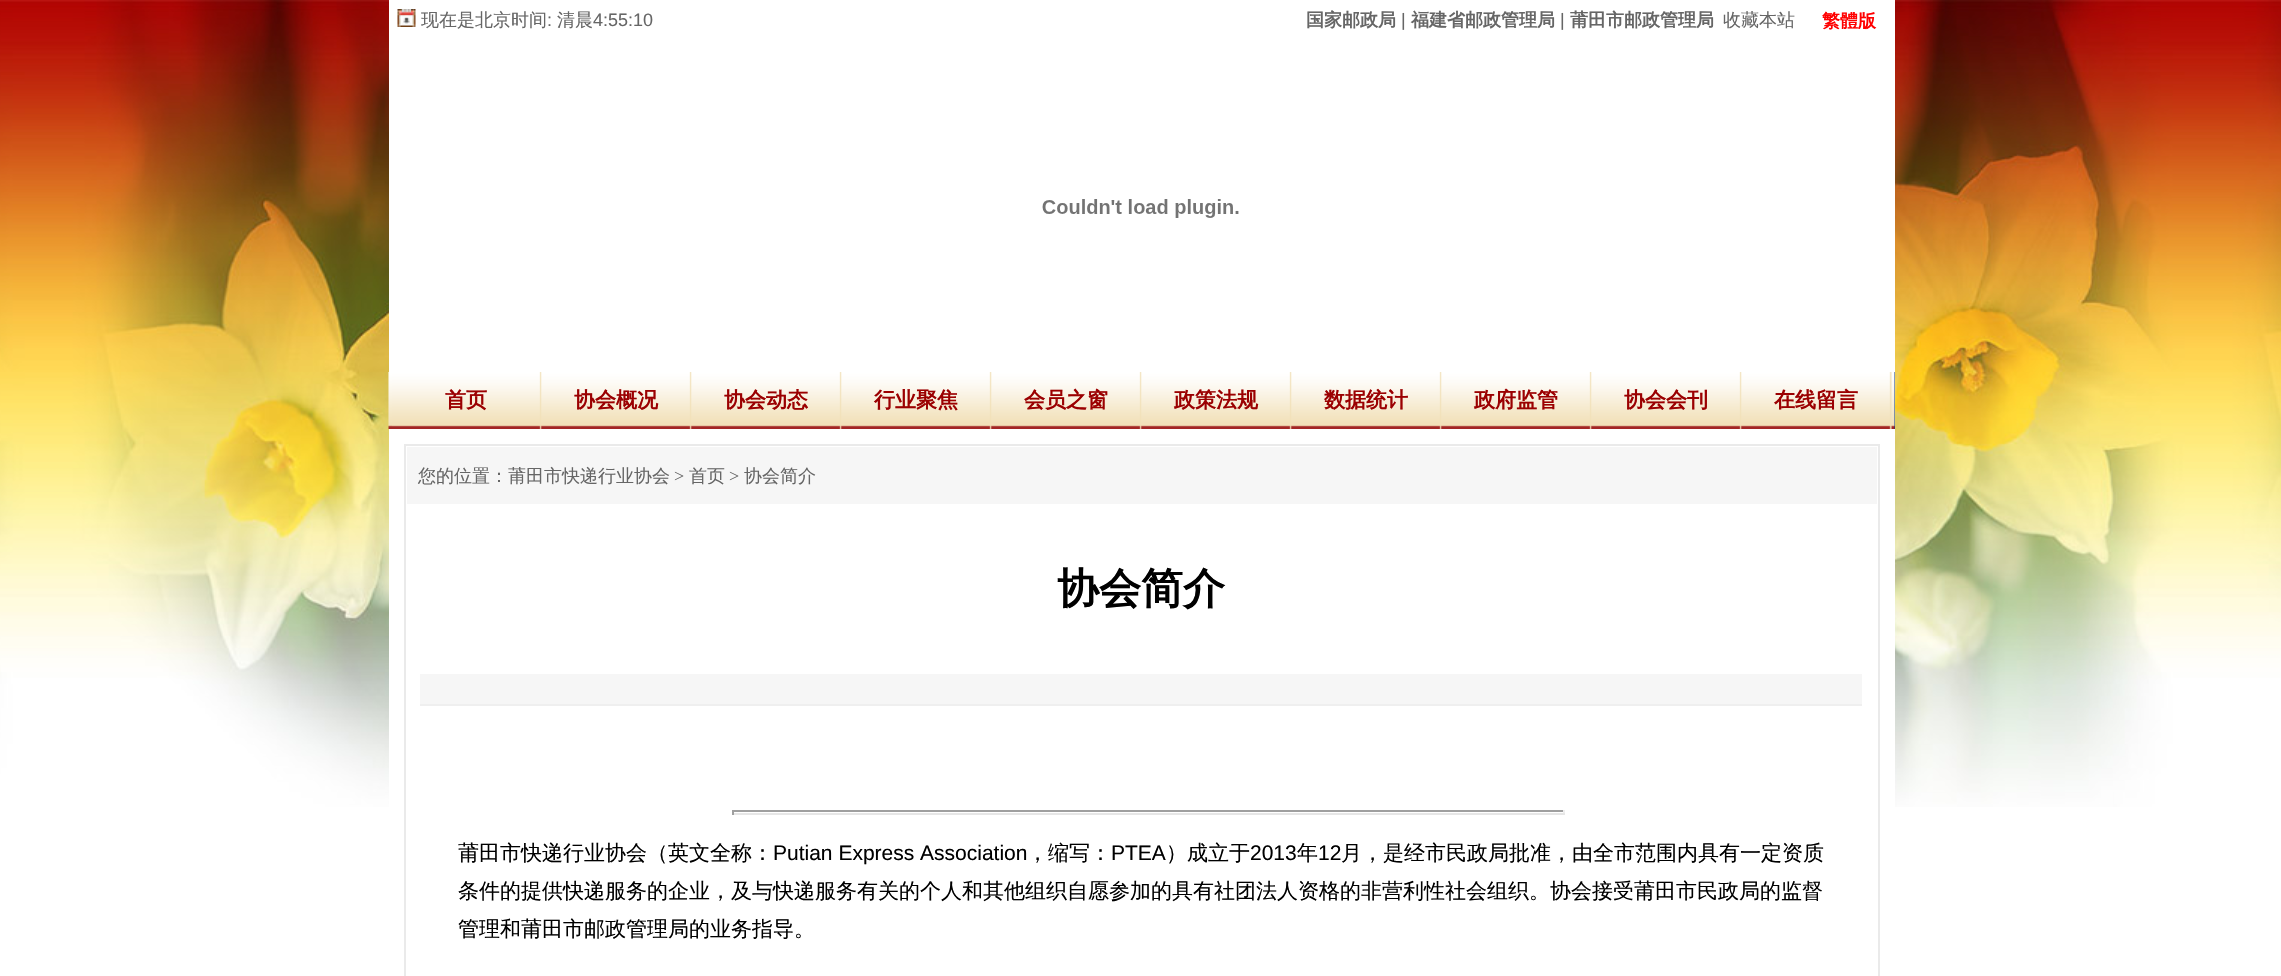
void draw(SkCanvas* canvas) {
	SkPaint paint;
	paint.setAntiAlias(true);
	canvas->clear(0xffffffff);
	canvas->drawImageRect(SkImages::DeferredFromEncodedData(SkData::MakeFromFileName("img1.png")), SkRect::MakeXYWH(0, 0, 2281, 807), SkSamplingOptions());
	paint.setColor(0xffffffff);
	canvas->drawRect(SkRect::MakeXYWH(389, 0, 1506, 372), paint);
	canvas->drawImageRect(SkImages::DeferredFromEncodedData(SkData::MakeFromFileName("img2.png")), SkRect::MakeXYWH(397, 9, 19, 18), SkSamplingOptions());
	SkFont f1(fontMgr->matchFamilyStyle("WenQuanYi Zen Hei", SkFontStyle(500, SkFontStyle::kNormal_Width, SkFontStyle::kUpright_Slant)), 18);
	f1.setSubpixel(true);
	paint.setColor(0xff666666);
	canvas->drawString("现在是北京时间", 421, 26, f1, paint);
	SkFont f2(fontMgr->matchFamilyStyle("Liberation Sans", SkFontStyle::Normal()), 18);
	f2.setSubpixel(true);
	canvas->drawString(":", 547, 26, f2, paint);
	canvas->drawString("清晨", 557, 26, f1, paint);
	canvas->drawString("4:55:10", 593, 26, f2, paint);
	SkFont f3(fontMgr->matchFamilyStyle("WenQuanYi Zen Hei", SkFontStyle::Bold()), 18);
	f3.setSubpixel(true);
	canvas->drawString("国家邮政局", 1306, 26, f3, paint);
	canvas->drawString("|", 1401, 26, f2, paint);
	canvas->drawString("福建省邮政管理局", 1411, 26, f3, paint);
	canvas->drawString("|", 1560, 26, f2, paint);
	canvas->drawString("莆田市邮政管理局", 1570, 26, f3, paint);
	canvas->drawString("收藏本站", 1723, 26, f1, paint);
	paint.setColor(0xffff0000);
	canvas->drawString("繁體版", 1822, 27, f3, paint);
	canvas->drawImageRect(SkImages::DeferredFromEncodedData(SkData::MakeFromFileName("img3.png")), SkRect::MakeXYWH(1042, 199, 197, 19), SkSamplingOptions());
	paint.setColor(0xff093887);
	canvas->drawRect(SkRect::MakeXYWH(1894, 372, 1, 57), paint);
	canvas->drawImageRect(SkImages::DeferredFromEncodedData(SkData::MakeFromFileName("img4.png")), SkRect::MakeXYWH(388, 372, 1507, 57), SkSamplingOptions());
	canvas->drawImageRect(SkImages::DeferredFromEncodedData(SkData::MakeFromFileName("img5.png")), SkRect::MakeXYWH(392, 372, 150, 57), SkSamplingOptions());
	SkFont f4(fontMgr->matchFamilyStyle("WenQuanYi Zen Hei", SkFontStyle::Bold()), 21);
	f4.setSubpixel(true);
	paint.setColor(0xff9b0001);
	canvas->drawString("首页", 445, 407, f4, paint);
	canvas->drawImageRect(SkImages::DeferredFromEncodedData(SkData::MakeFromFileName("img6.png")), SkRect::MakeXYWH(541, 372, 151, 57), SkSamplingOptions());
	canvas->drawString("协会概况", 574, 407, f4, paint);
	canvas->drawImageRect(SkImages::DeferredFromEncodedData(SkData::MakeFromFileName("img7.png")), SkRect::MakeXYWH(691, 372, 151, 57), SkSamplingOptions());
	canvas->drawString("协会动态", 724, 407, f4, paint);
	canvas->drawImageRect(SkImages::DeferredFromEncodedData(SkData::MakeFromFileName("img7.png")), SkRect::MakeXYWH(841, 372, 151, 57), SkSamplingOptions());
	canvas->drawString("行业聚焦", 874, 407, f4, paint);
	canvas->drawImageRect(SkImages::DeferredFromEncodedData(SkData::MakeFromFileName("img7.png")), SkRect::MakeXYWH(991, 372, 151, 57), SkSamplingOptions());
	canvas->drawString("会员之窗", 1024, 407, f4, paint);
	canvas->drawImageRect(SkImages::DeferredFromEncodedData(SkData::MakeFromFileName("img7.png")), SkRect::MakeXYWH(1141, 372, 151, 57), SkSamplingOptions());
	canvas->drawString("政策法规", 1174, 407, f4, paint);
	canvas->drawImageRect(SkImages::DeferredFromEncodedData(SkData::MakeFromFileName("img7.png")), SkRect::MakeXYWH(1291, 372, 151, 57), SkSamplingOptions());
	canvas->drawString("数据统计", 1324, 407, f4, paint);
	canvas->drawImageRect(SkImages::DeferredFromEncodedData(SkData::MakeFromFileName("img7.png")), SkRect::MakeXYWH(1441, 372, 151, 57), SkSamplingOptions());
	canvas->drawString("政府监管", 1474, 407, f4, paint);
	canvas->drawImageRect(SkImages::DeferredFromEncodedData(SkData::MakeFromFileName("img7.png")), SkRect::MakeXYWH(1591, 372, 151, 57), SkSamplingOptions());
	canvas->drawString("协会会刊", 1624, 407, f4, paint);
	canvas->drawImageRect(SkImages::DeferredFromEncodedData(SkData::MakeFromFileName("img8.png")), SkRect::MakeXYWH(1741, 372, 151, 57), SkSamplingOptions());
	canvas->drawString("在线留言", 1774, 407, f4, paint);
	paint.setColor(0xffffffff);
	canvas->drawRect(SkRect::MakeXYWH(389, 429, 1506, 378), paint);
	paint.setStroke(true);
	paint.setStrokeWidth(2);
	paint.setColor(0xffeaeaea);
	canvas->drawRect(SkRect::MakeXYWH(405, 445, 1474, 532), paint);
	paint.setStroke(false);
	paint.setColor(0xfff6f6f6);
	canvas->drawRect(SkRect::MakeXYWH(407, 447, 1470, 57), paint);
	paint.setColor(0xff666666);
	canvas->drawString("您的位置：莆田市快递行业协会", 418, 482, f1, paint);
	SkFont f5(fontMgr->matchFamilyStyle("Liberation Serif", SkFontStyle::Normal()), 18);
	f5.setSubpixel(true);
	canvas->drawString(">", 674, 482, f5, paint);
	canvas->drawString("首页", 689, 482, f1, paint);
	canvas->drawString(">", 729, 482, f5, paint);
	canvas->drawString("协会简介", 744, 482, f1, paint);
	SkFont f6(fontMgr->matchFamilyStyle("WenQuanYi Zen Hei", SkFontStyle::Bold()), 42);
	f6.setSubpixel(true);
	paint.setColor(0xff000000);
	canvas->drawString("协会简介", 1057, 603, f6, paint);
	paint.setColor(0xfff6f6f6);
	canvas->drawRect(SkRect::MakeXYWH(420, 674, 1442, 30), paint);
	paint.setColor(0xffefefef);
	canvas->drawRect(SkRect::MakeXYWH(420, 704, 1442, 2), paint);
	paint.setColor(0xff9f9f9f);
	canvas->drawRect(SkRect::MakeXYWH(732, 810, 833, 2), paint);
	paint.setColor(0xffeeeeee);
	canvas->drawRect(SkRect::MakeXYWH(1563, 810, 2, 5), paint);
	paint.setColor(0xffe6e6e6);
	canvas->drawRect(SkRect::MakeXYWH(732, 813, 833, 2), paint);
	paint.setColor(0xff9f9f9f);
	canvas->drawRect(SkRect::MakeXYWH(732, 810, 2, 5), paint);
	SkFont f7(fontMgr->matchFamilyStyle("WenQuanYi Zen Hei", SkFontStyle(500, SkFontStyle::kNormal_Width, SkFontStyle::kUpright_Slant)), 21);
	f7.setSubpixel(true);
	paint.setColor(0xff000000);
	canvas->drawString("莆田市快递行业协会（英文全称：", 458, 860, f7, paint);
	SkFont f8(fontMgr->matchFamilyStyle("Liberation Sans", SkFontStyle::Normal()), 21);
	f8.setSubpixel(true);
	canvas->drawString("Putian Express Association", 773, 860, f8, paint);
	canvas->drawString("，缩写：", 1027, 860, f7, paint);
	canvas->drawString("PTEA", 1111, 860, f8, paint);
	canvas->drawString("）成立于", 1166, 860, f7, paint);
	canvas->drawString("2013", 1250, 860, f8, paint);
	canvas->drawString("年", 1297, 860, f7, paint);
	canvas->drawString("12", 1318, 860, f8, paint);
	canvas->drawString("月，是经市民政局批准，由全市范围内具有一定资质", 1341, 860, f7, paint);
	canvas->drawString("条件的提供快递服务的企业，及与快递服务有关的个人和其他组织自愿参加的具有社团法人资格的非营利性社会组织。协会接受莆田市民政局的监督", 458, 898, f7, paint);
	canvas->drawString("管理和莆田市邮政管理局的业务指导。", 458, 936, f7, paint);
}
